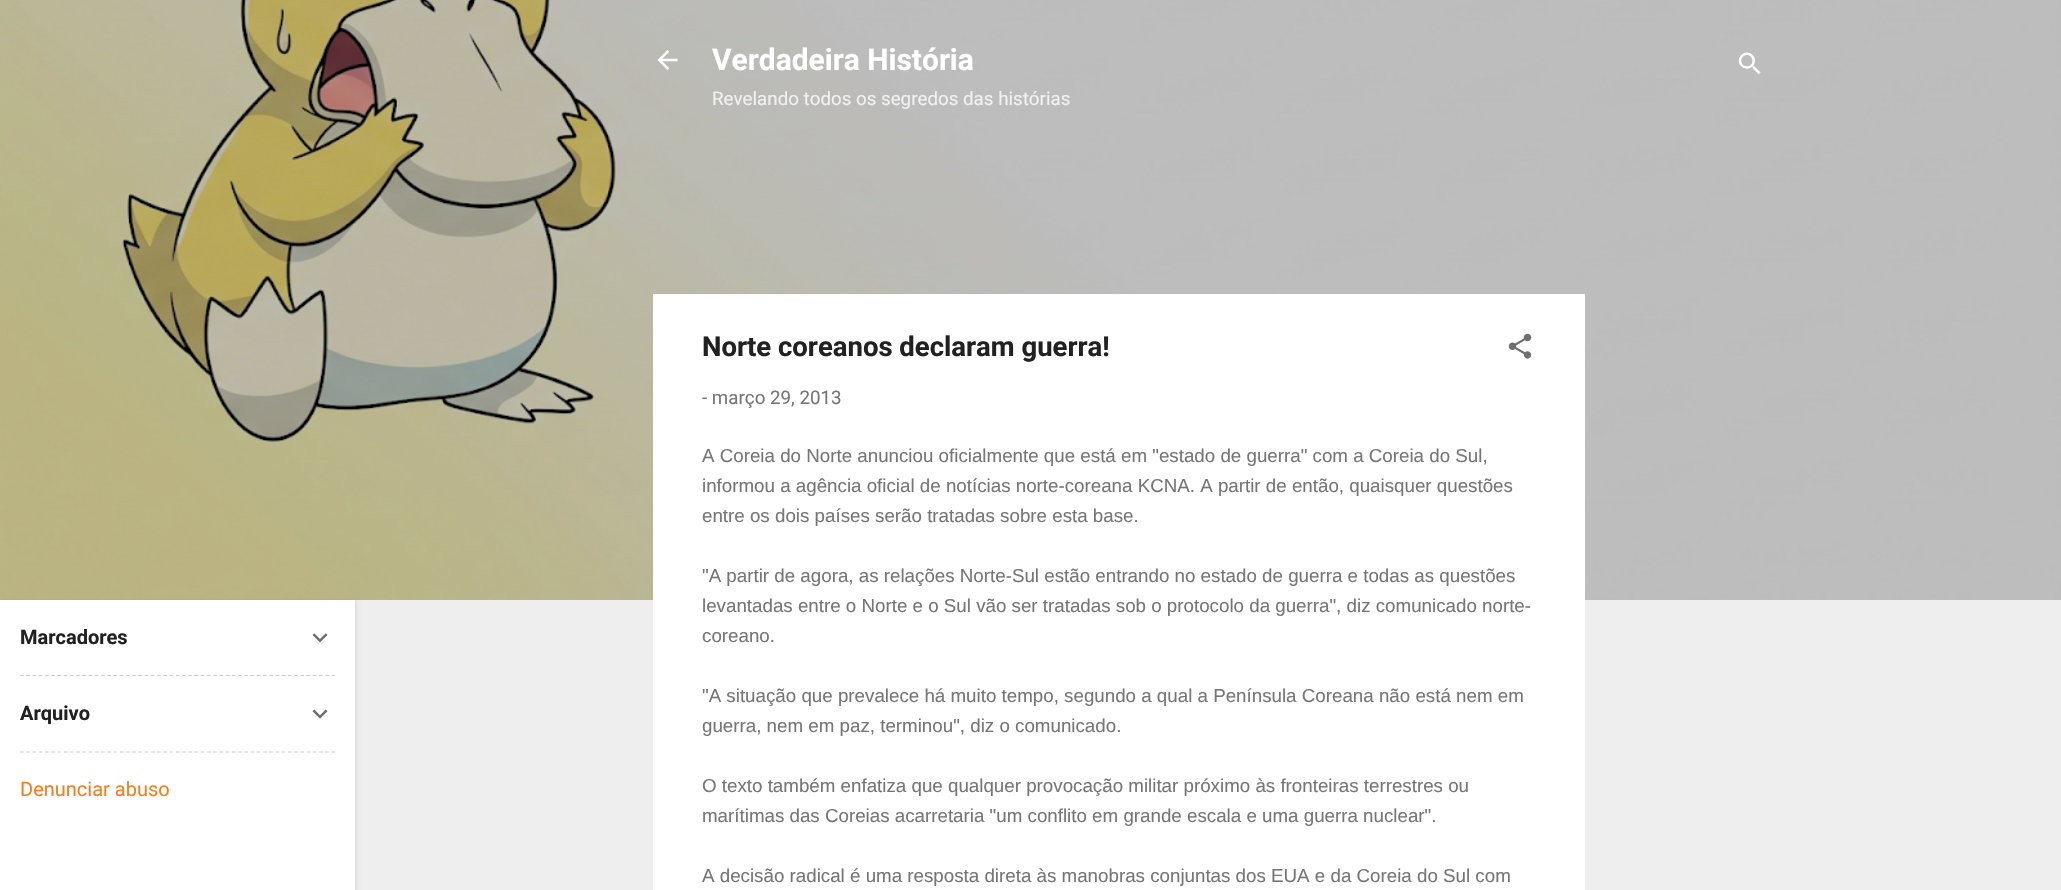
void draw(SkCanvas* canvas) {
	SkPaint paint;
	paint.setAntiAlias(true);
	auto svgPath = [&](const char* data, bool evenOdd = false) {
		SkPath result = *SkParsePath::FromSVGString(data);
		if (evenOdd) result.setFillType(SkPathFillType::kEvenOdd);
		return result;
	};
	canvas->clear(0xffeeeeee);
	canvas->drawImageRect(SkImages::DeferredFromEncodedData(SkData::MakeFromFileName("img3.png")), SkRect::MakeXYWH(0, 0, 2061, 600), SkSamplingOptions());
	paint.setColor(0x1a000000);
	paint.setMaskFilter(SkMaskFilter::MakeBlur(kNormal_SkBlurStyle, 2));
	canvas->drawRect(SkRect::MakeXYWH(1, 601, 355, 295), paint);
	paint.setMaskFilter(nullptr);
	paint.setColor(0xffffffff);
	canvas->drawRect(SkRect::MakeXYWH(0, 600, 355, 290), paint);
	SkFont f1(fontMgr->matchFamilyStyle("Roboto", SkFontStyle::Bold()), 20);
	f1.setSubpixel(true);
	paint.setColor(0xff212121);
	canvas->drawString("Marcadores", 20, 644, f1, paint);
	canvas->drawImageRect(SkImages::DeferredFromEncodedData(SkData::MakeFromFileName("img1.png")), SkRect::MakeXYWH(312, 633, 16, 10), SkSamplingOptions());
	paint.setStroke(true);
	paint.setStrokeWidth(1.2);
	paint.setColor(0xffcccccc);
	paint.setPathEffect(SkDashPathEffect::Make({{3.75f, 2.48f}}, 0));
	canvas->drawPath(svgPath("M20 675.5H335"), paint);
	paint.setPathEffect(nullptr);
	paint.setStroke(false);
	paint.setColor(0xff212121);
	canvas->drawString("Arquivo", 20, 720, f1, paint);
	canvas->drawImageRect(SkImages::DeferredFromEncodedData(SkData::MakeFromFileName("img2.png")), SkRect::MakeXYWH(312, 709, 16, 10), SkSamplingOptions());
	paint.setStroke(true);
	paint.setColor(0xffcccccc);
	paint.setPathEffect(SkDashPathEffect::Make({{3.75f, 2.48f}}, 0));
	canvas->drawPath(svgPath("M20 752H335"), paint);
	paint.setPathEffect(nullptr);
	SkFont f2(fontMgr->matchFamilyStyle("Roboto", SkFontStyle::Normal()), 20);
	f2.setSubpixel(true);
	paint.setStroke(false);
	paint.setColor(0xfff37f21);
	canvas->drawString("Denunciar abuso", 20, 796, f2, paint);
	canvas->drawImageRect(SkImages::DeferredFromEncodedData(SkData::MakeFromFileName("img4.png")), SkRect::MakeXYWH(657, 50, 21, 20), SkSamplingOptions());
	SkFont f3(fontMgr->matchFamilyStyle("Roboto", SkFontStyle::Bold()), 30);
	f3.setSubpixel(true);
	paint.setColor(0xffffffff);
	canvas->drawString("Verdadeira História", 712, 70, f3, paint);
	SkFont f4(fontMgr->matchFamilyStyle("Roboto", SkFontStyle::Normal()), 18.75);
	f4.setSubpixel(true);
	paint.setColor(0xfff2f1f1);
	canvas->drawString("Revelando todos os segredos das histórias", 712, 105, f4, paint);
	canvas->drawImageRect(SkImages::DeferredFromEncodedData(SkData::MakeFromFileName("img5.png")), SkRect::MakeXYWH(1738, 52, 23, 23), SkSamplingOptions());
	paint.setColor(0xffffffff);
	canvas->drawRect(SkRect::MakeXYWH(653, 294, 932, 596), paint);
	SkFont f5(fontMgr->matchFamilyStyle("Roboto", SkFontStyle::Bold()), 27.5);
	f5.setSubpixel(true);
	paint.setColor(0xff212121);
	canvas->drawString("Norte coreanos declaram guerra!", 702, 356, f5, paint);
	canvas->drawImageRect(SkImages::DeferredFromEncodedData(SkData::MakeFromFileName("img6.png")), SkRect::MakeXYWH(1508, 333, 24, 26), SkSamplingOptions());
	paint.setColor(0xff767676);
	canvas->drawString("- março 29, 2013", 702, 404, f4, paint);
	SkFont f6(fontMgr->matchFamilyStyle("Liberation Sans", SkFontStyle::Normal()), 18.75);
	f6.setSubpixel(true);
	canvas->drawString("A Coreia do Norte anunciou oficialmente que está em \"estado de guerra\" com a Coreia do Sul,", 702, 462, f6, paint);
	canvas->drawString("informou a agência oficial de notícias norte-coreana KCNA. A partir de então, quaisquer questões", 702, 492, f6, paint);
	canvas->drawString("entre os dois países serão tratadas sobre esta base.", 702, 522, f6, paint);
	canvas->drawString("\"A partir de agora, as relações Norte-Sul estão entrando no estado de guerra e todas as questões", 702, 582, f6, paint);
	canvas->drawString("levantadas entre o Norte e o Sul vão ser tratadas sob o protocolo da guerra\", diz comunicado norte-", 702, 612, f6, paint);
	canvas->drawString("coreano.", 702, 642, f6, paint);
	canvas->drawString("\"A situação que prevalece há muito tempo, segundo a qual a Península Coreana não está nem em", 702, 702, f6, paint);
	canvas->drawString("guerra, nem em paz, terminou\", diz o comunicado.", 702, 732, f6, paint);
	canvas->drawString("O texto também enfatiza que qualquer provocação militar próximo às fronteiras terrestres ou", 702, 792, f6, paint);
	canvas->drawString("marítimas das Coreias acarretaria \"um conflito em grande escala e uma guerra nuclear\".", 702, 822, f6, paint);
	canvas->drawString("A decisão radical é uma resposta direta às manobras conjuntas dos EUA e da Coreia do Sul com", 702, 882, f6, paint);
}
